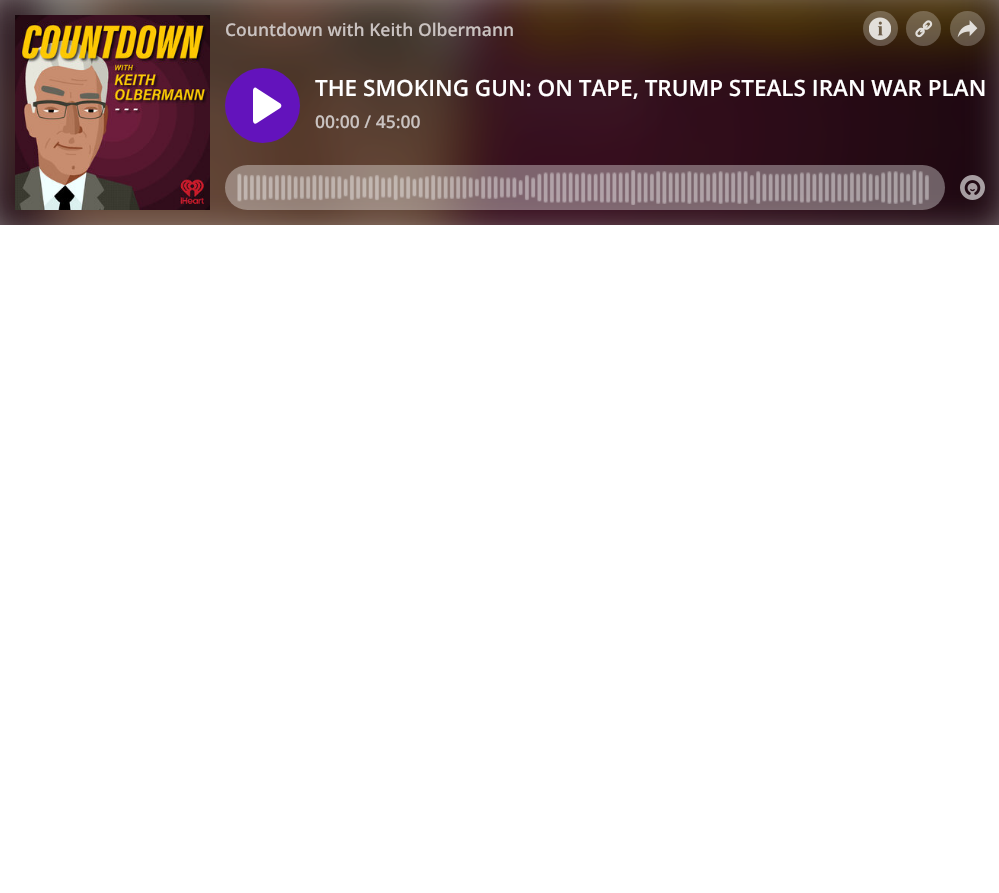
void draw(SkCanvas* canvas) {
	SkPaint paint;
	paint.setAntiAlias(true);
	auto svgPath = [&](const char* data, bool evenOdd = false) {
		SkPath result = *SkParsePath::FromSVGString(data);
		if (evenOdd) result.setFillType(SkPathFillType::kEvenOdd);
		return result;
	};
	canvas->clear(0xffffffff);
	canvas->drawImageRect(SkImages::DeferredFromEncodedData(SkData::MakeFromFileName("img1.png")), SkRect::MakeXYWH(0, 0, 999, 225), SkSamplingOptions());
	canvas->drawImageRect(SkImages::DeferredFromEncodedData(SkData::MakeFromFileName("img2.png")), SkRect::MakeXYWH(15, 15, 195, 195), SkSamplingOptions());
	SkFont f1(fontMgr->matchFamilyStyle("Open Sans", SkFontStyle(600, SkFontStyle::kNormal_Width, SkFontStyle::kUpright_Slant)), 17.5);
	f1.setSubpixel(true);
	paint.setColor(0xffcac3c1);
	canvas->drawString("Countdown with Keith Olbermann", 225, 36, f1, paint);
	paint.setColor(0x3dffffff);
	canvas->drawCircle(880.5, 28.5, 17.5, paint);
	canvas->drawImageRect(SkImages::DeferredFromEncodedData(SkData::MakeFromFileName("img3.png")), SkRect::MakeXYWH(869, 17, 22, 23), SkSamplingOptions());
	canvas->drawCircle(923.5, 28.5, 17.5, paint);
	canvas->drawImageRect(SkImages::DeferredFromEncodedData(SkData::MakeFromFileName("img4.png")), SkRect::MakeXYWH(915, 20, 18, 18), SkSamplingOptions());
	canvas->drawCircle(967.5, 28.5, 17.5, paint);
	canvas->drawImageRect(SkImages::DeferredFromEncodedData(SkData::MakeFromFileName("img5.png")), SkRect::MakeXYWH(957, 20, 21, 18), SkSamplingOptions());
	paint.setColor(0xff6313bc);
	canvas->drawCircle(262.5, 105.5, 37.5, paint);
	paint.setColor(0xffffffff);
	canvas->drawPath(svgPath("M257 123C255 124.5 253 123.5 253 120.5V91C253 88 255 86.5 257 88.5L279.5 103C282 104.5 282 107 279.5 108.5Z"), paint);
	SkFont f2(fontMgr->matchFamilyStyle("Open Sans", SkFontStyle(600, SkFontStyle::kNormal_Width, SkFontStyle::kUpright_Slant)), 22.5);
	f2.setSubpixel(true);
	canvas->drawString("THE SMOKING GUN: ON TAPE, TRUMP STEALS IRAN WAR PLAN", 315, 96, f2, paint);
	paint.setColor(0xffcac3c1);
	canvas->drawString("00:00 / 45:00", 315, 128, f1, paint);
	paint.setColor(0x59ffffff);
	canvas->drawRoundRect(SkRect::MakeXYWH(225, 165, 720, 45), 22.5, 22.5, paint);
	canvas->drawImageRect(SkImages::DeferredFromEncodedData(SkData::MakeFromFileName("img6.png")), SkRect::MakeXYWH(237, 170, 692, 35), SkSamplingOptions());
	canvas->drawImageRect(SkImages::DeferredFromEncodedData(SkData::MakeFromFileName("img7.png")), SkRect::MakeXYWH(960, 175, 25, 25), SkSamplingOptions());
}
